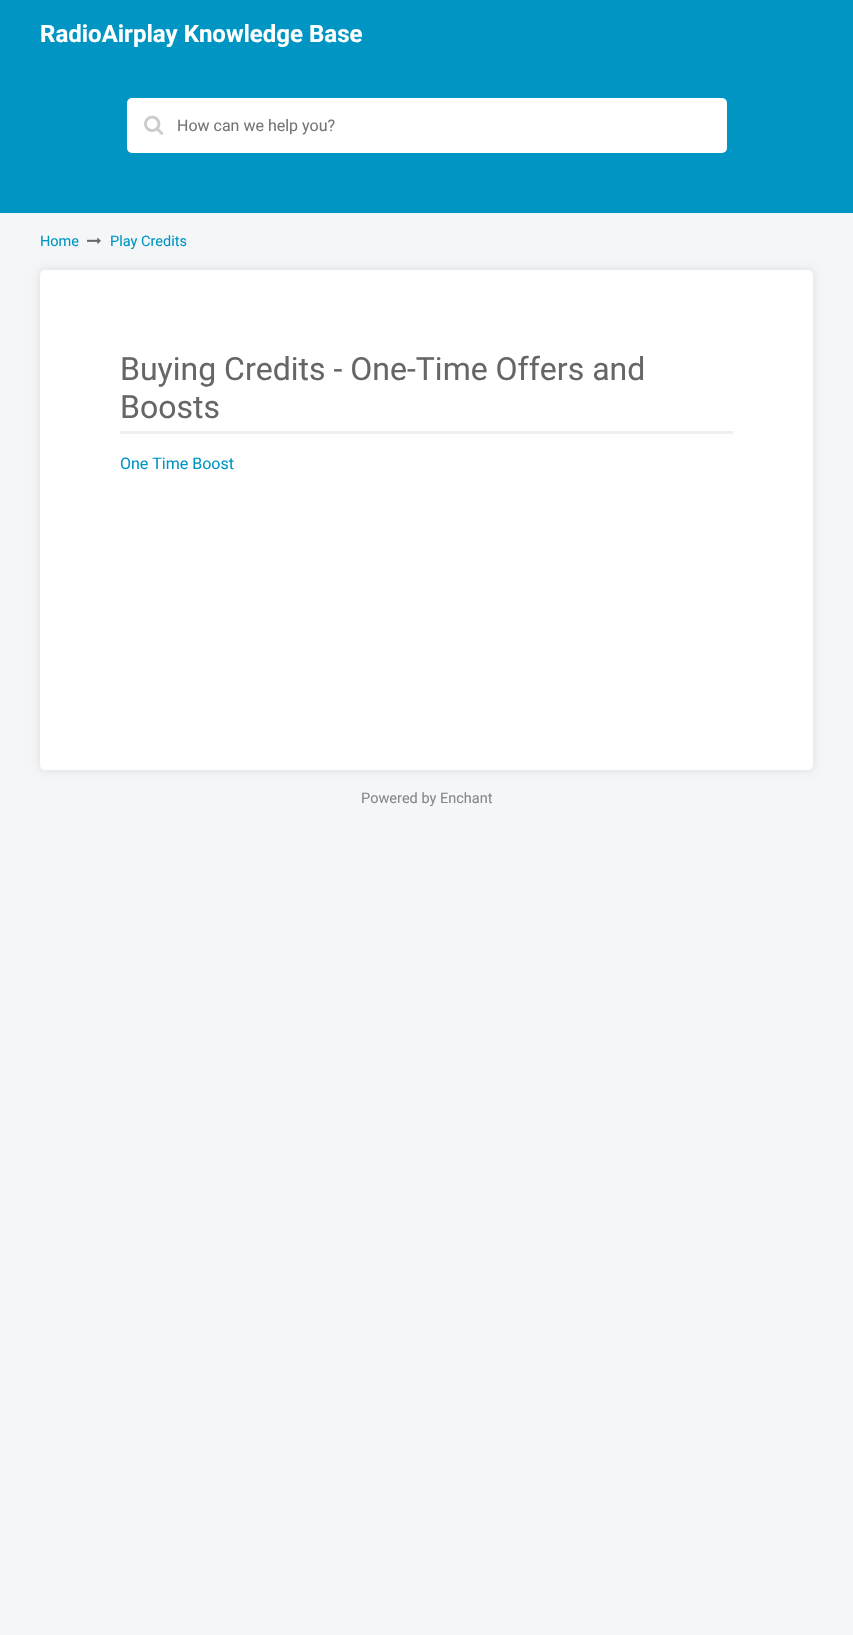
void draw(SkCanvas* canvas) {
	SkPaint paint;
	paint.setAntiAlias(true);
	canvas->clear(0xfff4f6f8);
	paint.setColor(0xff0095c3);
	canvas->drawRect(SkRect::MakeXYWH(0, 0, 853, 213), paint);
	SkFont f1(fontMgr->matchFamilyStyle("Roboto", SkFontStyle::Bold()), 24);
	f1.setSubpixel(true);
	paint.setColor(0xffffffff);
	canvas->drawString("RadioAirplay Knowledge Base", 40, 42, f1, paint);
	canvas->drawRoundRect(SkRect::MakeXYWH(127, 98, 600, 55), 5, 5, paint);
	canvas->drawImageRect(SkImages::DeferredFromEncodedData(SkData::MakeFromFileName("img1.png")), SkRect::MakeXYWH(144, 115, 20, 20), SkSamplingOptions());
	SkFont f2(fontMgr->matchFamilyStyle("Roboto", SkFontStyle::Normal()), 16);
	f2.setSubpixel(true);
	paint.setColor(0xff757575);
	canvas->drawString("How can we help you?", 177, 131, f2, paint);
	SkFont f3(fontMgr->matchFamilyStyle("Roboto", SkFontStyle::Normal()), 14.5);
	f3.setSubpixel(true);
	paint.setColor(0xff0095c3);
	canvas->drawString("Home", 40, 246, f3, paint);
	canvas->drawImageRect(SkImages::DeferredFromEncodedData(SkData::MakeFromFileName("img2.png")), SkRect::MakeXYWH(87, 237, 14, 7), SkSamplingOptions());
	canvas->drawString("Play Credits", 110, 246, f3, paint);
	paint.setColor(0x1a000000);
	paint.setMaskFilter(SkMaskFilter::MakeBlur(kNormal_SkBlurStyle, 5));
	canvas->drawRoundRect(SkRect::MakeXYWH(40, 270, 773, 500), 5, 5, paint);
	paint.setMaskFilter(nullptr);
	paint.setColor(0xffffffff);
	canvas->drawRoundRect(SkRect::MakeXYWH(40, 270, 773, 500), 5, 5, paint);
	paint.setColor(0xffeeeeee);
	canvas->drawRect(SkRect::MakeXYWH(120, 431, 613, 3), paint);
	SkFont f4(fontMgr->matchFamilyStyle("Roboto", SkFontStyle::Normal()), 32);
	f4.setSubpixel(true);
	paint.setColor(0xff666666);
	canvas->drawString("Buying Credits - One-Time Offers and", 120, 380, f4, paint);
	canvas->drawString("Boosts", 120, 418, f4, paint);
	paint.setColor(0xff0095c3);
	canvas->drawString("One Time Boost", 120, 469, f2, paint);
	paint.setColor(0xff888888);
	canvas->drawString("Powered by Enchant", 361, 803, f3, paint);
}
